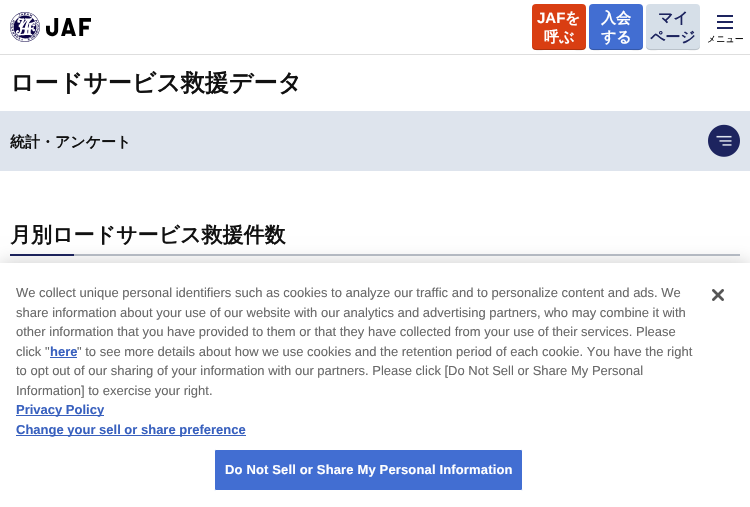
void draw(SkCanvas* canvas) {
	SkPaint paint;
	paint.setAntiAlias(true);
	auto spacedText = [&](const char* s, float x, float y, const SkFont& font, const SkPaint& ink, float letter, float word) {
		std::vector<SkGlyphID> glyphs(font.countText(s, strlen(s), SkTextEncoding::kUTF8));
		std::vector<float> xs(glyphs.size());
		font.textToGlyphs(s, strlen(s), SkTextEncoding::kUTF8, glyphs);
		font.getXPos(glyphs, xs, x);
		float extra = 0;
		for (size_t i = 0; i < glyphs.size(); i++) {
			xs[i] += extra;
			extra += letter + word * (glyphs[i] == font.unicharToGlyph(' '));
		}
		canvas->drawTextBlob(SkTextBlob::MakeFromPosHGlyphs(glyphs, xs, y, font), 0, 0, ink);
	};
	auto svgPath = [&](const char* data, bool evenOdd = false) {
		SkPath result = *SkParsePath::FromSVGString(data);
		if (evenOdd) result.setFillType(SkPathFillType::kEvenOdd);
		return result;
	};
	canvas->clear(0xffffffff);
	paint.setColor(0xffdedede);
	canvas->drawRect(SkRect::MakeXYWH(0, 54, 750, 1), paint);
	canvas->drawImageRect(SkImages::DeferredFromEncodedData(SkData::MakeFromFileName("img1.png")), SkRect::MakeXYWH(10, 12, 81, 30), SkSamplingOptions());
	paint.setColor(0xffd93e12);
	canvas->drawRoundRect(SkRect::MakeXYWH(532, 4, 54, 46), 4, 4, paint);
	paint.setColor(0x33000000);
	canvas->drawPath(svgPath("M532 45C532 52 539 50 544 50H574C579 50 586 52 586 45C586 47 584 49 582 49H536C534 49 532 47 532 45Z"), paint);
	SkFont f1(fontMgr->matchFamilyStyle("Liberation Sans", SkFontStyle::Bold()), 15);
	f1.setSubpixel(true);
	paint.setColor(0xffffffff);
	canvas->drawString("JAF", 537, 23, f1, paint);
	SkFont f2(fontMgr->matchFamilyStyle("WenQuanYi Zen Hei", SkFontStyle::Bold()), 15);
	f2.setSubpixel(true);
	canvas->drawString("を", 565, 23, f2, paint);
	canvas->drawString("呼ぶ", 544, 42, f2, paint);
	paint.setColor(0xff426ed2);
	canvas->drawRoundRect(SkRect::MakeXYWH(589, 4, 54, 46), 4, 4, paint);
	paint.setColor(0x33000000);
	canvas->drawPath(svgPath("M589 45C589 52 596 50 601 50H631C636 50 643 52 643 45C643 47 641 49 639 49H593C591 49 589 47 589 45Z"), paint);
	paint.setColor(0xffffffff);
	canvas->drawString("入会", 601, 23, f2, paint);
	canvas->drawString("する", 601, 42, f2, paint);
	paint.setColor(0xffd6dfe8);
	canvas->drawRoundRect(SkRect::MakeXYWH(646, 4, 54, 46), 4, 4, paint);
	paint.setColor(0x21000000);
	canvas->drawPath(svgPath("M646 45C646 52 653 50 658 50H688C693 50 700 52 700 45C700 47 698 49 696 49H650C648 49 646 47 646 45Z"), paint);
	paint.setColor(0xff1d245f);
	canvas->drawString("マイ", 658, 23, f2, paint);
	canvas->drawString("ページ", 650, 42, f2, paint);
	canvas->drawRect(SkRect::MakeXYWH(717, 15, 16, 2), paint);
	canvas->drawRect(SkRect::MakeXYWH(717, 21, 16, 2), paint);
	canvas->drawRect(SkRect::MakeXYWH(717, 27, 16, 2), paint);
	SkFont f3(fontMgr->matchFamilyStyle("WenQuanYi Zen Hei", SkFontStyle(500, SkFontStyle::kNormal_Width, SkFontStyle::kUpright_Slant)), 9);
	f3.setSubpixel(true);
	paint.setColor(0xff000000);
	canvas->drawString("メニュー", 707, 42, f3, paint);
	SkFont f4(fontMgr->matchFamilyStyle("WenQuanYi Zen Hei", SkFontStyle::Bold()), 24);
	f4.setSubpixel(true);
	paint.setColor(0xff111111);
	canvas->drawString("ロードサービス救援データ", 10, 91, f4, paint);
	paint.setColor(0xffdee4ed);
	canvas->drawRect(SkRect::MakeXYWH(0, 111, 750, 60), paint);
	canvas->drawImageRect(SkImages::DeferredFromEncodedData(SkData::MakeFromFileName("img2.png")), SkRect::MakeXYWH(708, 124, 32, 33), SkSamplingOptions());
	paint.setColor(0xff111111);
	canvas->drawString("統計・アンケート", 10, 147, f2, paint);
	paint.setColor(0xffbbc1ca);
	canvas->drawRect(SkRect::MakeXYWH(74, 254, 666, 2), paint);
	SkFont f5(fontMgr->matchFamilyStyle("WenQuanYi Zen Hei", SkFontStyle::Bold()), 21);
	f5.setSubpixel(true);
	paint.setColor(0xff111111);
	canvas->drawString("月別ロードサービス救援件数", 10, 242, f5, paint);
	paint.setColor(0xff1d245f);
	canvas->drawRect(SkRect::MakeXYWH(10, 254, 64, 2), paint);
	paint.setColor(0x33000000);
	paint.setMaskFilter(SkMaskFilter::MakeBlur(kNormal_SkBlurStyle, 9));
	canvas->drawRect(SkRect::MakeXYWH(0, 263, 750, 244), paint);
	paint.setMaskFilter(nullptr);
	paint.setColor(0xffffffff);
	canvas->drawRect(SkRect::MakeXYWH(0, 263, 750, 244), paint);
	SkFont f6(fontMgr->matchFamilyStyle("Liberation Sans", SkFontStyle::Normal()), 13);
	f6.setSubpixel(true);
	paint.setColor(0xff696969);
	canvas->drawString("We collect unique personal identifiers such as cookies to analyze our traffic and to personalize content and ads. We", 16, 297, f6, paint);
	canvas->drawString("share information about your use of our website with our analytics and advertising partners, who may combine it with", 16, 317, f6, paint);
	canvas->drawString("other information that you have provided to them or that they have collected from your use of their services. Please", 16, 336, f6, paint);
	canvas->drawString("click \"", 16, 356, f6, paint);
	SkFont f7(fontMgr->matchFamilyStyle("Liberation Sans", SkFontStyle::Bold()), 13);
	f7.setSubpixel(true);
	paint.setColor(0xff3860be);
	canvas->drawString("here", 50, 356, f7, paint);
	canvas->drawRect(SkRect::MakeXYWH(50, 357, 27, 1), paint);
	paint.setColor(0xff696969);
	canvas->drawString("\" to see more details about how we use cookies and the retention period of each cookie. You have the right", 77, 356, f6, paint);
	canvas->drawString("to opt out of our sharing of your information with our partners. Please click [Do Not Sell or Share My Personal", 16, 375, f6, paint);
	canvas->drawString("Information] to exercise your right.", 16, 395, f6, paint);
	paint.setColor(0xff3860be);
	canvas->drawRect(SkRect::MakeXYWH(16, 415, 88, 1), paint);
	canvas->drawString("Privacy Policy", 16, 414, f7, paint);
	canvas->drawRect(SkRect::MakeXYWH(16, 435, 230, 1), paint);
	canvas->drawString("Change your sell or share preference", 16, 434, f7, paint);
	paint.setColor(0xff426ed2);
	canvas->drawRoundRect(SkRect::MakeXYWH(214.5, 449.5, 308, 41), 1.5, 1.5, paint);
	paint.setStroke(true);
	paint.setStrokeWidth(1);
	paint.setColor(0xffffffff);
	canvas->drawRoundRect(SkRect::MakeXYWH(214.5, 449.5, 308, 41), 1.5, 1.5, paint);
	paint.setStroke(false);
	spacedText("Do Not Sell or Share My Personal Information", 225, 474, f7, paint, 0.15, 0);
	canvas->drawImageRect(SkImages::DeferredFromEncodedData(SkData::MakeFromFileName("img3.png")), SkRect::MakeXYWH(712, 289, 12, 12), SkSamplingOptions());
}
